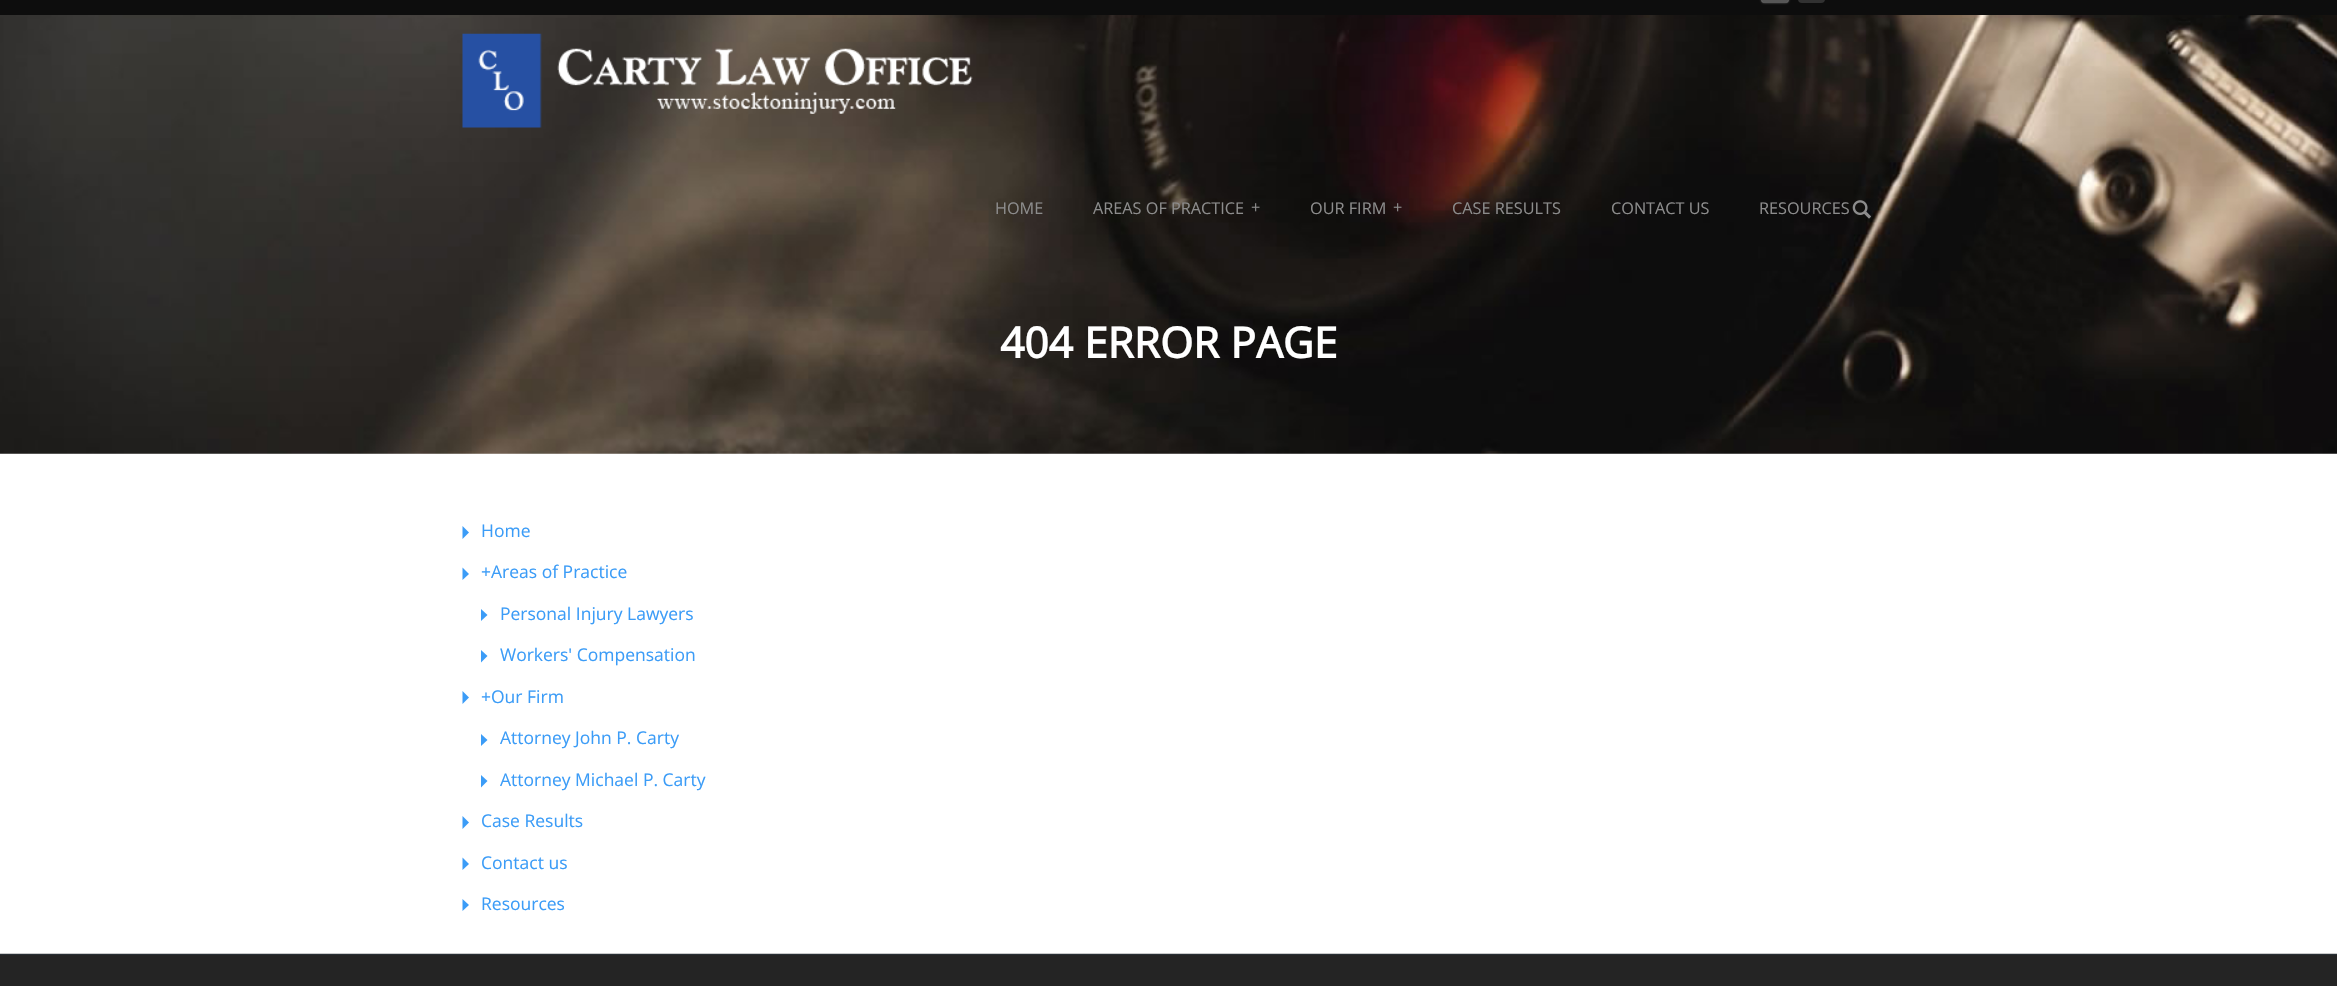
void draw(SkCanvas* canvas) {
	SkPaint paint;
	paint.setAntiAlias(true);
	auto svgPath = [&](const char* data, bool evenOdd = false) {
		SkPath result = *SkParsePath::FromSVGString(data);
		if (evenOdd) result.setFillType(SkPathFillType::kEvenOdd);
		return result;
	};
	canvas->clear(0xffffffff);
	canvas->drawImageRect(SkImages::DeferredFromEncodedData(SkData::MakeFromFileName("img1.png")), SkRect::MakeXYWH(0, 15, 2337, 439), SkSamplingOptions());
	paint.setColor(0xff0d0d0d);
	canvas->drawRect(SkRect::MakeXYWH(0, 0, 2337, 15), paint);
	canvas->save();
	canvas->clipPath(svgPath("M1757 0H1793V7H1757ZM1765-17H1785C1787-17 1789-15 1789-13V-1C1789 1 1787 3 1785 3H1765C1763 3 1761 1 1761-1V-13C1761-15 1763-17 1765-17Z", true), true);
	paint.setColor(0x66ffffff);
	paint.setMaskFilter(SkMaskFilter::MakeBlur(kNormal_SkBlurStyle, 1));
	canvas->drawRoundRect(SkRect::MakeXYWH(1761, -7, 28, 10), 4, 4, paint);
	paint.setMaskFilter(nullptr);
	canvas->restore();
	paint.setStroke(true);
	paint.setStrokeWidth(3);
	paint.setColor(0x4dffffff);
	canvas->drawRoundRect(SkRect::MakeXYWH(1762.5, -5.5, 25, 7), 2.5, 2.5, paint);
	paint.setColor(0xff313131);
	canvas->drawRoundRect(SkRect::MakeXYWH(1799.5, -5.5, 24, 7), 2.5, 2.5, paint);
	canvas->drawImageRect(SkImages::DeferredFromEncodedData(SkData::MakeFromFileName("img2.png")), SkRect::MakeXYWH(462, 33, 511, 95), SkSamplingOptions());
	SkFont f1(fontMgr->matchFamilyStyle("Open Sans", SkFontStyle::Normal()), 16.25);
	f1.setSubpixel(true);
	paint.setStroke(false);
	paint.setColor(0xff8c8c8c);
	canvas->drawString("HOME", 995, 214, f1, paint);
	canvas->drawString("AREAS OF PRACTICE", 1093, 214, f1, paint);
	canvas->drawString("+", 1251, 213, f1, paint);
	canvas->drawString("OUR FIRM", 1310, 214, f1, paint);
	canvas->drawString("+", 1393, 213, f1, paint);
	canvas->drawString("CASE RESULTS", 1452, 214, f1, paint);
	canvas->drawString("CONTACT US", 1611, 214, f1, paint);
	canvas->drawString("RESOURCES", 1759, 214, f1, paint);
	canvas->drawImageRect(SkImages::DeferredFromEncodedData(SkData::MakeFromFileName("img3.png")), SkRect::MakeXYWH(1852, 200, 19, 19), SkSamplingOptions());
	SkFont f2(fontMgr->matchFamilyStyle("Open Sans", SkFontStyle::Bold()), 42.5);
	f2.setSubpixel(true);
	paint.setColor(0xffffffff);
	canvas->drawString("404 ERROR PAGE", 1000, 358, f2, paint);
	paint.setColor(0xff3b9cf7);
	canvas->drawPath(svgPath("M462.5 539V526L469 532.5Z"), paint);
	SkFont f3(fontMgr->matchFamilyStyle("Open Sans", SkFontStyle::Normal()), 17.5);
	f3.setSubpixel(true);
	canvas->drawString("Home", 481, 537, f3, paint);
	canvas->drawPath(svgPath("M462.5 580V567.5L469 574Z"), paint);
	canvas->drawString("+Areas of Practice", 481, 578, f3, paint);
	canvas->drawPath(svgPath("M481 621V609L487.5 615Z"), paint);
	canvas->drawString("Personal Injury Lawyers", 500, 620, f3, paint);
	canvas->drawPath(svgPath("M481 662.5V650L487.5 656Z"), paint);
	canvas->drawString("Workers' Compensation", 500, 661, f3, paint);
	canvas->drawPath(svgPath("M462.5 704V691L469 697.5Z"), paint);
	canvas->drawString("+Our Firm", 481, 703, f3, paint);
	canvas->drawPath(svgPath("M481 746V734L487.5 740Z"), paint);
	canvas->drawString("Attorney John P. Carty", 500, 744, f3, paint);
	canvas->drawPath(svgPath("M481 787.5V775L487.5 781Z"), paint);
	canvas->drawString("Attorney Michael P. Carty", 500, 786, f3, paint);
	canvas->drawPath(svgPath("M462.5 829V816L469 822.5Z"), paint);
	canvas->drawString("Case Results", 481, 827, f3, paint);
	canvas->drawPath(svgPath("M462.5 870V857.5L469 864Z"), paint);
	canvas->drawString("Contact us", 481, 869, f3, paint);
	canvas->drawPath(svgPath("M462.5 911V899L469 905Z"), paint);
	canvas->drawString("Resources", 481, 910, f3, paint);
	canvas->drawImageRect(SkImages::DeferredFromEncodedData(SkData::MakeFromFileName("img4.png")), SkRect::MakeXYWH(0, 953, 2337, 1), SkSamplingOptions());
	paint.setColor(0xff242424);
	canvas->drawRect(SkRect::MakeXYWH(0, 955, 2337, 31), paint);
	paint.setColor(0xff282f35);
	canvas->drawRect(SkRect::MakeXYWH(0, 954, 2337, 1), paint);
}
